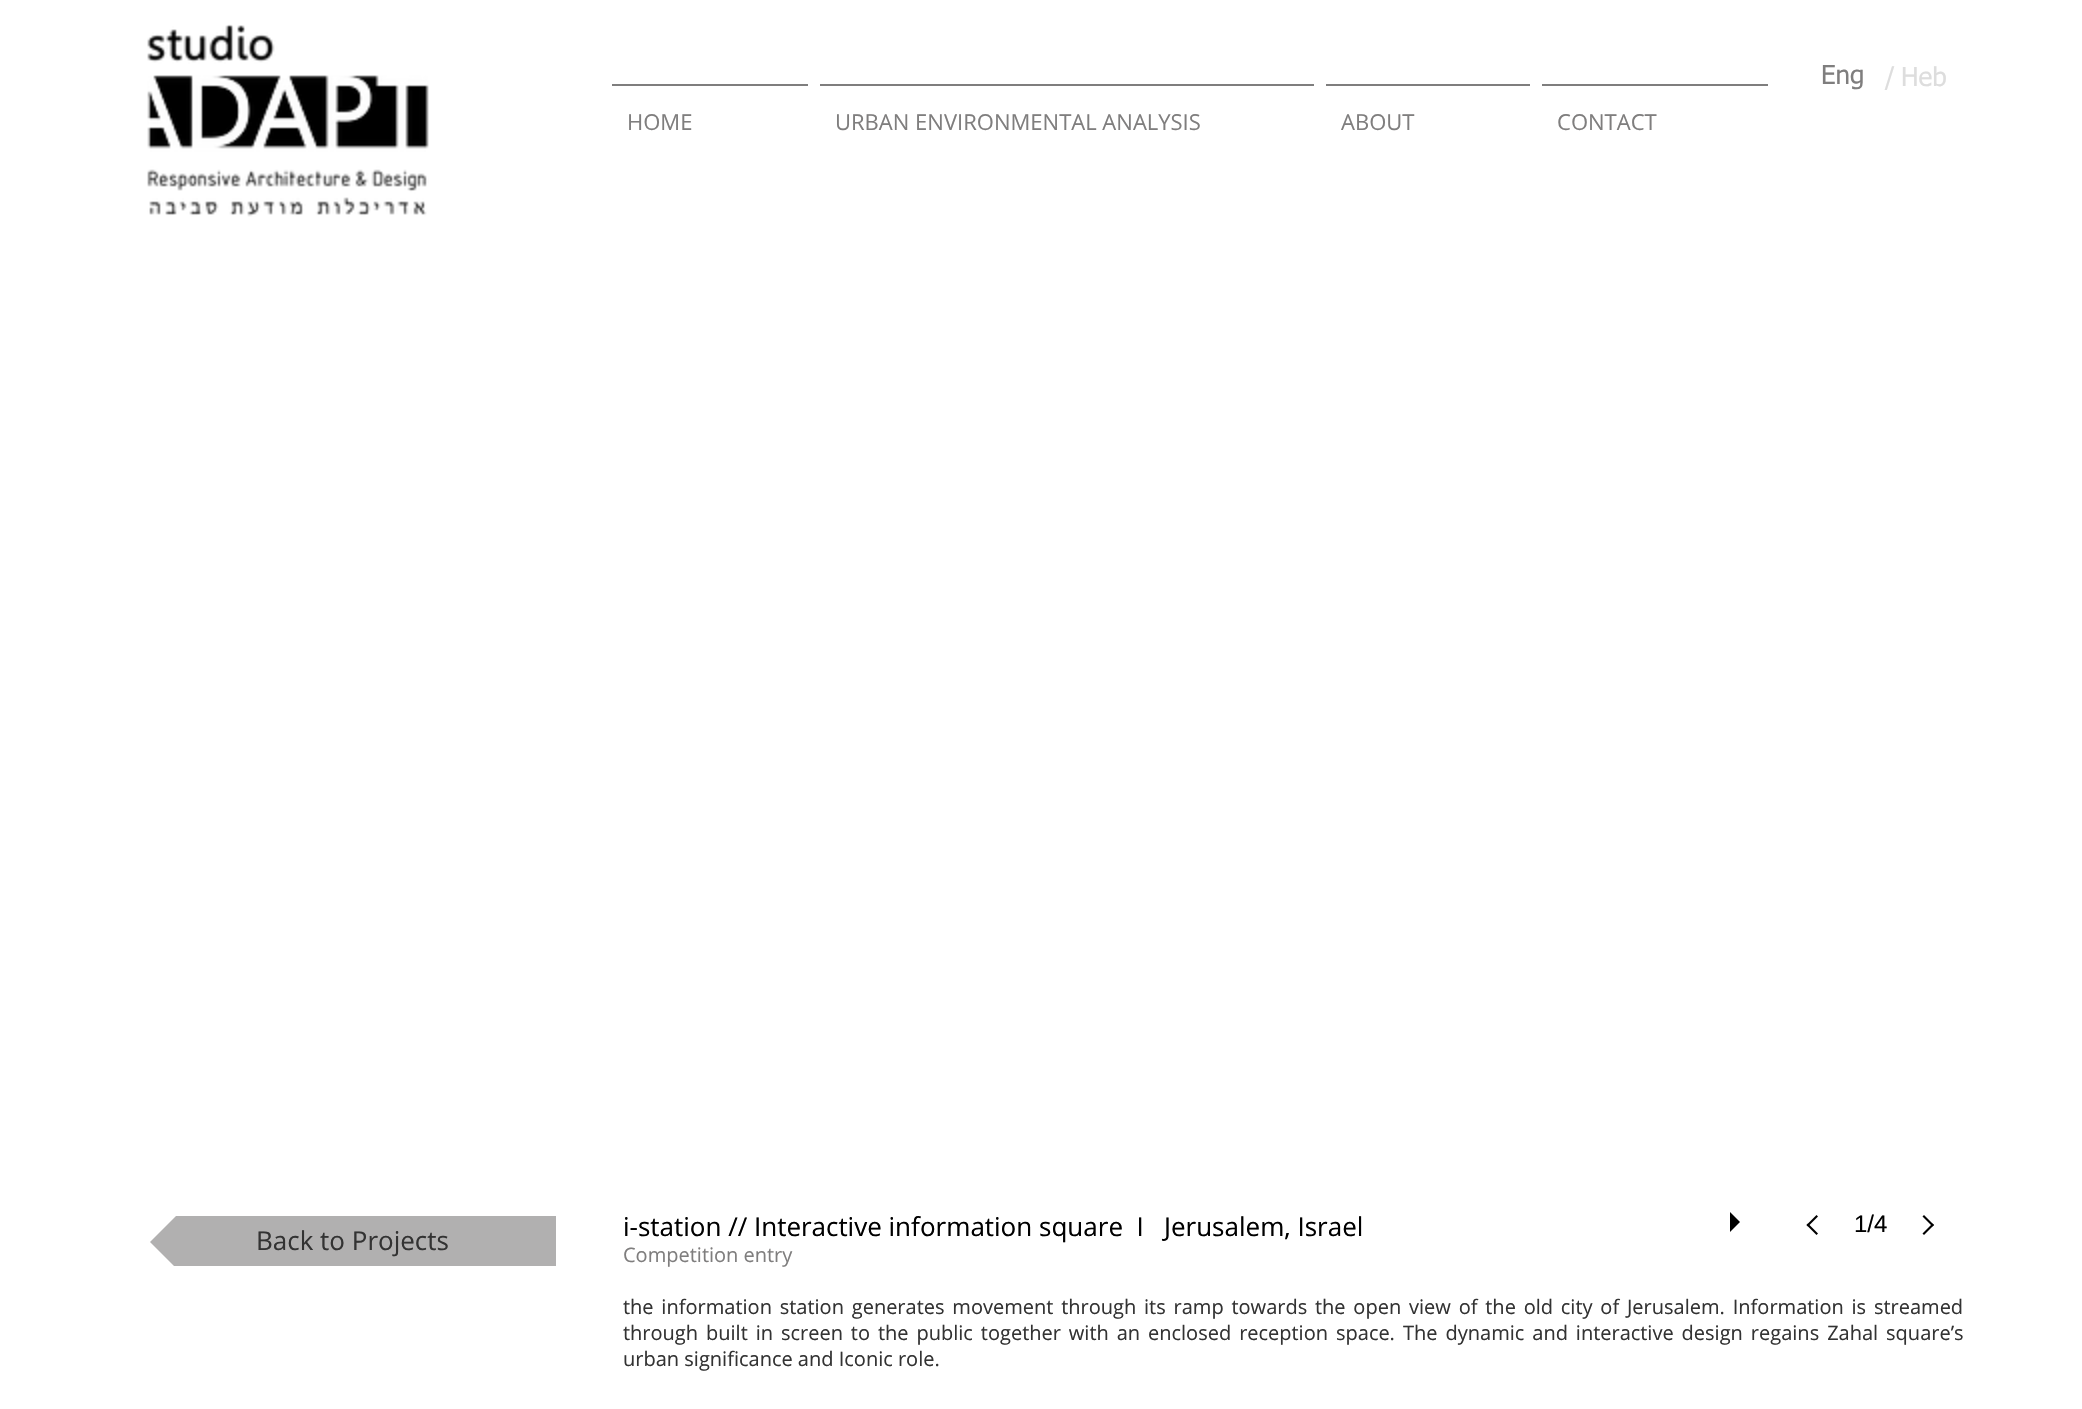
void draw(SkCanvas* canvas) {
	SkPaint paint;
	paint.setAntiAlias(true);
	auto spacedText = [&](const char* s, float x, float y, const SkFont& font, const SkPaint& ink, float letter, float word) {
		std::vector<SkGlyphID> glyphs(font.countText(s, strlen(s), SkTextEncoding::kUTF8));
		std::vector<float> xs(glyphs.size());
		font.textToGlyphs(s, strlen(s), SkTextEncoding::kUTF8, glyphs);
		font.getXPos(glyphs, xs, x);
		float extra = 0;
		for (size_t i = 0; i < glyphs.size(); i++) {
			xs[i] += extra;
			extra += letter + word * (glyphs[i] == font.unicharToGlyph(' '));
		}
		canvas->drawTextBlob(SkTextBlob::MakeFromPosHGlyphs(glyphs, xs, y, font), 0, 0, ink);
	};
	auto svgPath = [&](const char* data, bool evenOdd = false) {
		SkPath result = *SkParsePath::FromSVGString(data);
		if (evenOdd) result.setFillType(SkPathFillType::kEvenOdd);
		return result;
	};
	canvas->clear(0xffffffff);
	canvas->drawImageRect(SkImages::DeferredFromEncodedData(SkData::MakeFromFileName("img1.png")), SkRect::MakeXYWH(147, 24, 282, 193), SkSamplingOptions());
	SkFont f1(fontMgr->matchFamilyStyle("tahoma", SkFontStyle::Normal()), 26);
	f1.setSubpixel(true);
	paint.setColor(0xff7f7e7e);
	canvas->drawString("Eng", 1821, 84, f1, paint);
	paint.setColor(0xffdddddd);
	canvas->drawString("/", 1885, 86, f1, paint);
	canvas->drawString("Heb", 1901, 86, f1, paint);
	paint.setColor(0xff7f7e7e);
	canvas->drawRect(SkRect::MakeXYWH(612, 84, 196, 2), paint);
	SkFont f2(fontMgr->matchFamilyStyle("Open Sans", SkFontStyle::Normal()), 22);
	f2.setSubpixel(true);
	canvas->drawString("HOME", 627, 130, f2, paint);
	canvas->drawRect(SkRect::MakeXYWH(820, 84, 494, 2), paint);
	canvas->drawString("URBAN ENVIRONMENTAL ANALYSIS", 835, 130, f2, paint);
	canvas->drawRect(SkRect::MakeXYWH(1326, 84, 204, 2), paint);
	canvas->drawString("ABOUT", 1341, 130, f2, paint);
	canvas->drawRect(SkRect::MakeXYWH(1542, 84, 226, 2), paint);
	canvas->drawString("CONTACT", 1557, 130, f2, paint);
	paint.setColor(0xff000000);
	canvas->drawPath(svgPath("M1730 1232V1212L1740 1222Z"), paint);
	canvas->drawPath(svgPath("M1806.5 1225L1816.5 1215L1818 1216.5L1808 1226.5Z"), paint);
	canvas->drawPath(svgPath("M1806.5 1225L1808 1223.5L1818 1233.5L1816.5 1235Z"), paint);
	SkFont f3(fontMgr->matchFamilyStyle("Liberation Sans", SkFontStyle::Normal()), 24);
	f3.setSubpixel(true);
	canvas->drawString("1/4", 1854, 1232, f3, paint);
	canvas->drawPath(svgPath("M1922.5 1216.5L1924 1215L1934 1225L1932.5 1226.5Z"), paint);
	canvas->drawPath(svgPath("M1922.5 1233.5L1932.5 1223.5L1934 1225L1924 1235Z"), paint);
	canvas->save();
	canvas->clipRect(SkRect::MakeXYWH(150, 1216, 406, 50));
	paint.setColor(0xffb1b0b0);
	canvas->drawPath(svgPath("M250 1242H150L250 1142Z"), paint);
	canvas->restore();
	canvas->drawRect(SkRect::MakeXYWH(250, 1216, 306, 50), paint);
	canvas->save();
	canvas->clipRect(SkRect::MakeXYWH(150, 1216, 406, 50));
	canvas->drawPath(svgPath("M150 1242H250V1342Z"), paint);
	canvas->restore();
	SkFont f4(fontMgr->matchFamilyStyle("Open Sans", SkFontStyle::Normal()), 26);
	f4.setSubpixel(true);
	paint.setColor(0xff333333);
	canvas->drawString("Back to Projects", 256, 1250, f4, paint);
	paint.setColor(0xff000000);
	canvas->drawString("i-station // Interactive information square  I   Jerusalem, Israel", 623, 1236, f4, paint);
	SkFont f5(fontMgr->matchFamilyStyle("Open Sans", SkFontStyle::Normal()), 20);
	f5.setSubpixel(true);
	paint.setColor(0xff7f7e7e);
	canvas->drawString("Competition entry", 623, 1262, f5, paint);
	paint.setColor(0xff333333);
	spacedText("the information station generates movement through its ramp towards the open view of the old city of Jerusalem. Information is streamed", 623, 1314, f5, paint, 0, 2.6);
	spacedText("through built in screen to the public together with an enclosed reception space. The dynamic and interactive design regains Zahal square’s", 623, 1340, f5, paint, 0, 2.75);
	canvas->drawString("urban significance and Iconic role.", 623, 1366, f5, paint);
}
